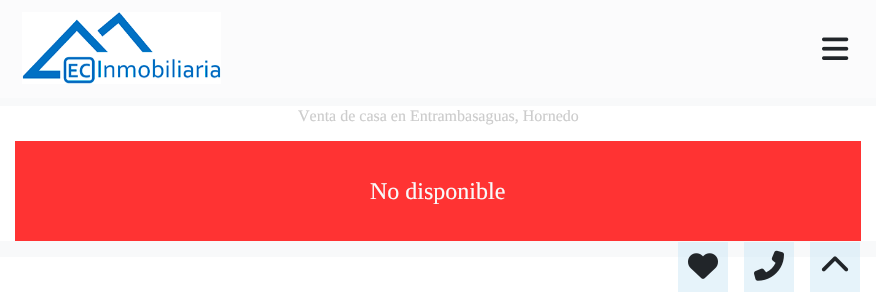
void draw(SkCanvas* canvas) {
	SkPaint paint;
	paint.setAntiAlias(true);
	canvas->clear(0xffffffff);
	paint.setColor(0xffe6f3fa);
	canvas->drawRect(SkRect::MakeXYWH(678, 257, 50, 35), paint);
	canvas->drawRect(SkRect::MakeXYWH(744, 257, 50, 35), paint);
	canvas->drawRect(SkRect::MakeXYWH(810, 257, 50, 35), paint);
	paint.setColor(0xfffbfbfc);
	canvas->drawRect(SkRect::MakeXYWH(0, 0, 876, 98), paint);
	canvas->drawImageRect(SkImages::DeferredFromEncodedData(SkData::MakeFromFileName("img1.png")), SkRect::MakeXYWH(22, 12, 199, 72), SkSamplingOptions());
	canvas->drawImageRect(SkImages::DeferredFromEncodedData(SkData::MakeFromFileName("img2.png")), SkRect::MakeXYWH(822, 37, 27, 23), SkSamplingOptions());
	paint.setColor(0xfff8f9fa);
	canvas->drawRect(SkRect::MakeXYWH(0, 98, 876, 159), paint);
	paint.setColor(0xffe2f0f8);
	canvas->drawRect(SkRect::MakeXYWH(678, 242, 50, 15), paint);
	canvas->drawRect(SkRect::MakeXYWH(744, 242, 50, 15), paint);
	canvas->drawRect(SkRect::MakeXYWH(810, 242, 50, 15), paint);
	paint.setColor(0xffffffff);
	canvas->drawRect(SkRect::MakeXYWH(0, 106, 876, 135), paint);
	SkFont f1(fontMgr->matchFamilyStyle("Liberation Serif", SkFontStyle::Normal()), 16);
	f1.setSubpixel(true);
	paint.setColor(0xffcccccc);
	canvas->drawString("Venta de casa en Entrambasaguas, Hornedo", 298, 121, f1, paint);
	paint.setColor(0xffff3333);
	canvas->drawRect(SkRect::MakeXYWH(15, 141, 846, 100), paint);
	SkFont f2(fontMgr->matchFamilyStyle("Liberation Serif", SkFontStyle::Normal()), 24);
	f2.setSubpixel(true);
	paint.setColor(0xfff8f9fa);
	canvas->drawString("No disponible", 370, 199, f2, paint);
	canvas->drawImageRect(SkImages::DeferredFromEncodedData(SkData::MakeFromFileName("img3.png")), SkRect::MakeXYWH(688, 253, 30, 26), SkSamplingOptions());
	canvas->drawImageRect(SkImages::DeferredFromEncodedData(SkData::MakeFromFileName("img4.png")), SkRect::MakeXYWH(754, 250, 30, 31), SkSamplingOptions());
	canvas->drawImageRect(SkImages::DeferredFromEncodedData(SkData::MakeFromFileName("img5.png")), SkRect::MakeXYWH(821, 256, 28, 16), SkSamplingOptions());
}
